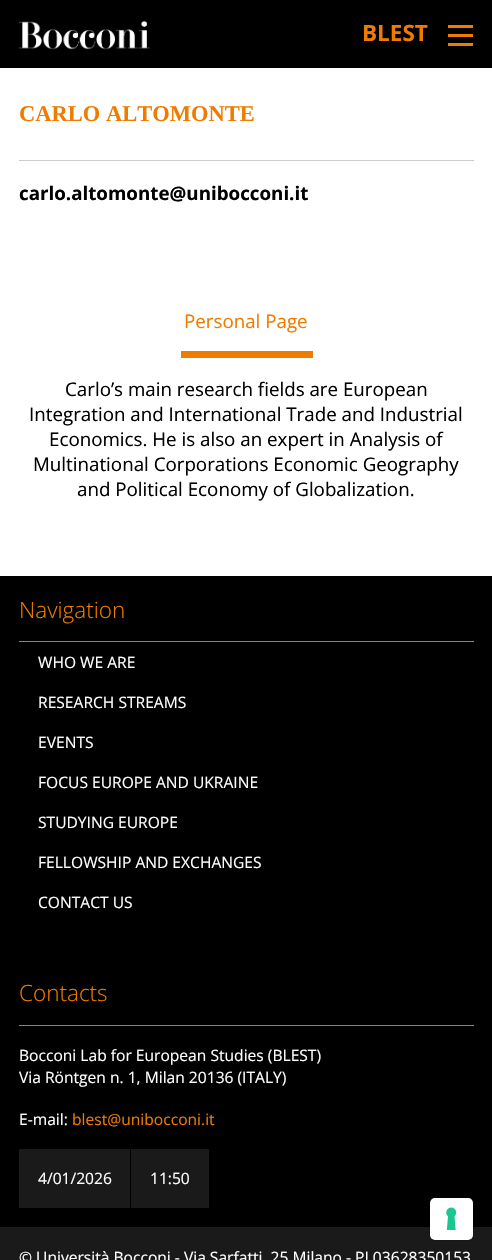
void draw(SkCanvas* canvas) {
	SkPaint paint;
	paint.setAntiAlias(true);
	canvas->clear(0xffffffff);
	paint.setColor(0xff000000);
	canvas->drawRect(SkRect::MakeXYWH(0, 0, 492, 68), paint);
	canvas->drawImageRect(SkImages::DeferredFromEncodedData(SkData::MakeFromFileName("img1.png")), SkRect::MakeXYWH(18, 20, 132, 30), SkSamplingOptions());
	SkFont f1(fontMgr->matchFamilyStyle("Open Sans", SkFontStyle::Bold()), 22.5);
	f1.setSubpixel(true);
	paint.setColor(0xffef7c00);
	canvas->drawString("BLEST", 362, 41, f1, paint);
	canvas->drawRect(SkRect::MakeXYWH(448, 25, 25, 3), paint);
	canvas->drawRect(SkRect::MakeXYWH(448, 34, 25, 3), paint);
	canvas->drawRect(SkRect::MakeXYWH(448, 43, 25, 3), paint);
	paint.setColor(0xffcccccc);
	canvas->drawRect(SkRect::MakeXYWH(19, 160, 455, 1), paint);
	SkFont f2(fontMgr->matchFamilyStyle("Liberation Serif", SkFontStyle::Bold()), 22.5);
	f2.setSubpixel(true);
	paint.setColor(0xffef7c00);
	canvas->drawString("CARLO ALTOMONTE", 19, 121, f2, paint);
	SkFont f3(fontMgr->matchFamilyStyle("Open Sans", SkFontStyle::Bold()), 18.75);
	f3.setSubpixel(true);
	paint.setColor(0xff000000);
	canvas->drawString("carlo.altomonte@unibocconi.it", 19, 200, f3, paint);
	SkFont f4(fontMgr->matchFamilyStyle("Open Sans", SkFontStyle::Normal()), 18.75);
	f4.setSubpixel(true);
	paint.setColor(0xffef7c00);
	canvas->drawString("Personal Page", 184, 328, f4, paint);
	canvas->drawRect(SkRect::MakeXYWH(181, 351, 132, 7), paint);
	paint.setColor(0xff000000);
	canvas->drawString("Carlo’s main research fields are European", 65, 396, f4, paint);
	canvas->drawString("Integration and International Trade and Industrial", 29, 421, f4, paint);
	canvas->drawString("Economics. He is also an expert in Analysis of", 49, 446, f4, paint);
	canvas->drawString("Multinational Corporations Economic Geography", 33, 471, f4, paint);
	canvas->drawString("and Political Economy of Globalization.", 77, 496, f4, paint);
	canvas->drawRect(SkRect::MakeXYWH(0, 576, 492, 651), paint);
	paint.setColor(0xff858486);
	canvas->drawRect(SkRect::MakeXYWH(19, 641, 455, 1), paint);
	SkFont f5(fontMgr->matchFamilyStyle("Open Sans", SkFontStyle(300, SkFontStyle::kNormal_Width, SkFontStyle::kUpright_Slant)), 22.5);
	f5.setSubpixel(true);
	paint.setColor(0xffef7c00);
	canvas->drawString("Navigation", 19, 618, f5, paint);
	SkFont f6(fontMgr->matchFamilyStyle("Open Sans", SkFontStyle::Normal()), 15.6);
	f6.setSubpixel(true);
	paint.setColor(0xffffffff);
	canvas->drawString("WHO WE ARE", 38, 668, f6, paint);
	canvas->drawString("RESEARCH STREAMS", 38, 708, f6, paint);
	canvas->drawString("EVENTS", 38, 748, f6, paint);
	canvas->drawString("FOCUS EUROPE AND UKRAINE", 38, 788, f6, paint);
	canvas->drawString("STUDYING EUROPE", 38, 828, f6, paint);
	canvas->drawString("FELLOWSHIP AND EXCHANGES", 38, 868, f6, paint);
	canvas->drawString("CONTACT US", 38, 908, f6, paint);
	paint.setColor(0xff858486);
	canvas->drawRect(SkRect::MakeXYWH(19, 1025, 455, 1), paint);
	paint.setColor(0xffef7c00);
	canvas->drawString("Contacts", 19, 1001, f5, paint);
	paint.setColor(0xffffffff);
	canvas->drawString("Bocconi Lab for European Studies (BLEST)", 19, 1061, f6, paint);
	canvas->drawString("Via Röntgen n. 1, Milan 20136 (ITALY)", 19, 1083, f6, paint);
	canvas->drawString("E-mail:", 19, 1125, f6, paint);
	paint.setColor(0xffef7c00);
	canvas->drawString("blest@unibocconi.it", 72, 1125, f6, paint);
	paint.setColor(0xff1a1a1a);
	canvas->drawRect(SkRect::MakeXYWH(19, 1149, 111, 59), paint);
	paint.setColor(0xffffffff);
	canvas->drawString("4/01/2026", 38, 1184, f6, paint);
	paint.setColor(0xff1a1a1a);
	canvas->drawRect(SkRect::MakeXYWH(131, 1149, 78, 59), paint);
	paint.setColor(0xffffffff);
	canvas->drawString("11:50", 150, 1184, f6, paint);
	paint.setColor(0xff1a1a1a);
	canvas->drawRect(SkRect::MakeXYWH(0, 1227, 492, 33), paint);
	paint.setColor(0xffffffff);
	canvas->drawString("© Università Bocconi - Via Sarfatti, 25 Milano - PI 03628350153", 19, 1263, f6, paint);
	paint.setStroke(true);
	paint.setStrokeWidth(1);
	paint.setColor(0x26000000);
	canvas->drawRoundRect(SkRect::MakeXYWH(429.5, 1196.5, 44, 44), 5.5, 5.5, paint);
	paint.setStroke(false);
	paint.setColor(0xffffffff);
	canvas->drawRoundRect(SkRect::MakeXYWH(430, 1198, 43, 42), 5, 5, paint);
	canvas->drawImageRect(SkImages::DeferredFromEncodedData(SkData::MakeFromFileName("img2.png")), SkRect::MakeXYWH(446, 1207, 11, 23), SkSamplingOptions());
}
